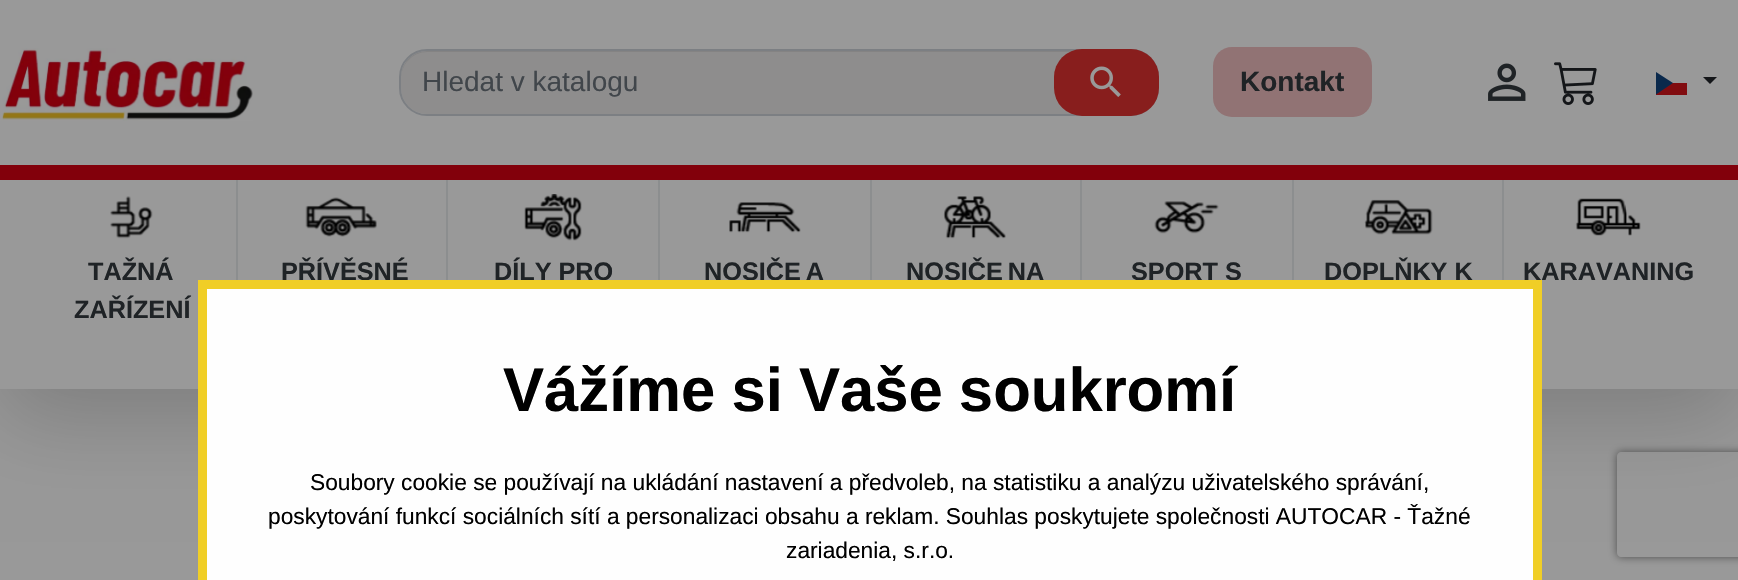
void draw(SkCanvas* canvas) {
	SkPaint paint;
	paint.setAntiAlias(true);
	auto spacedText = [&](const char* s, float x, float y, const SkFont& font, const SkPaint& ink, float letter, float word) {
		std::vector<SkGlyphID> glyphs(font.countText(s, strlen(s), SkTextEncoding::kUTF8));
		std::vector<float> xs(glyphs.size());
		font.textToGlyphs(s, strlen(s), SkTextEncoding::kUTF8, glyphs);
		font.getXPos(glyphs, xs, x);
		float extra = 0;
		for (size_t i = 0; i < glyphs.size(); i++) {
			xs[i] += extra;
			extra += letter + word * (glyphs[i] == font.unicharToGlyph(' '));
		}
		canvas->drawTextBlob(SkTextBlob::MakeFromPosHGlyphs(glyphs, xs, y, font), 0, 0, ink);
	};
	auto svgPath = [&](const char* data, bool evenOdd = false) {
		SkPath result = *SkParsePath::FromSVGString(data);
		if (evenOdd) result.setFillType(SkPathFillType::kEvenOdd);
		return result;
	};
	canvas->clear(0xff999999);
	paint.setColor(0x2e000000);
	paint.setMaskFilter(SkMaskFilter::MakeBlur(kNormal_SkBlurStyle, 42));
	canvas->drawRect(SkRect::MakeXYWH(0, 28, 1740, 389), paint);
	paint.setMaskFilter(nullptr);
	paint.setColor(0xff999999);
	canvas->drawRect(SkRect::MakeXYWH(0, 0, 1738, 389), paint);
	canvas->drawImageRect(SkImages::DeferredFromEncodedData(SkData::MakeFromFileName("img1.png")), SkRect::MakeXYWH(0, 48, 253, 73), SkSamplingOptions());
	paint.setColor(0xff8e8d8d);
	canvas->drawRoundRect(SkRect::MakeXYWH(401, 51, 756, 63), 26, 26, paint);
	paint.setColor(0x12000000);
	canvas->drawPath(svgPath("M427 52H1130C1145 52 1157 64 1157 79V77C1157 63 1145 51 1131 51H427C413 51 401 63 401 77V79C401 64 413 52 427 52Z"), paint);
	paint.setStroke(true);
	paint.setStrokeWidth(2);
	paint.setColor(0xff7c7f83);
	canvas->drawRoundRect(SkRect::MakeXYWH(400, 50, 758, 65), 27, 27, paint);
	SkFont f1(fontMgr->matchFamilyStyle("Liberation Sans", SkFontStyle::Normal()), 28);
	f1.setSubpixel(true);
	paint.setStroke(false);
	paint.setColor(0xff41464b);
	canvas->drawString("Hledat v katalogu", 422, 91, f1, paint);
	paint.setColor(0xff881e1d);
	canvas->drawRoundRect(SkRect::MakeXYWH(1054, 49, 105, 67), 28, 28, paint);
	canvas->drawImageRect(SkImages::DeferredFromEncodedData(SkData::MakeFromFileName("img2.png")), SkRect::MakeXYWH(1090, 66, 31, 31), SkSamplingOptions());
	paint.setColor(0xff917374);
	canvas->drawRoundRect(SkRect::MakeXYWH(1213, 47, 159, 70), 19, 19, paint);
	SkFont f2(fontMgr->matchFamilyStyle("Liberation Sans", SkFontStyle::Bold()), 28);
	f2.setSubpixel(true);
	paint.setColor(0xff1f2326);
	canvas->drawString("Kontakt", 1240, 91, f2, paint);
	canvas->drawImageRect(SkImages::DeferredFromEncodedData(SkData::MakeFromFileName("img3.png")), SkRect::MakeXYWH(1488, 63, 38, 38), SkSamplingOptions());
	canvas->drawImageRect(SkImages::DeferredFromEncodedData(SkData::MakeFromFileName("img4.png")), SkRect::MakeXYWH(1554, 62, 43, 43), SkSamplingOptions());
	paint.setColor(0xff810c10);
	canvas->drawRect(SkRect::MakeXYWH(1656, 83, 31, 12), paint);
	paint.setColor(0xff0a294c);
	canvas->drawPath(svgPath("M1673 83L1656 72V94.5Z"), paint);
	paint.setColor(0xff141619);
	canvas->drawPath(svgPath("M1703 77H1717L1710 84Z"), paint);
	paint.setColor(0xff82000b);
	canvas->drawRect(SkRect::MakeXYWH(0, 165, 1738, 15), paint);
	paint.setColor(0xff8c8e8f);
	canvas->drawRect(SkRect::MakeXYWH(236, 180, 2, 100), paint);
	canvas->drawImageRect(SkImages::DeferredFromEncodedData(SkData::MakeFromFileName("img5.png")), SkRect::MakeXYWH(110, 196, 43, 43), SkSamplingOptions());
	SkFont f3(fontMgr->matchFamilyStyle("Liberation Sans", SkFontStyle::Bold()), 25.25);
	f3.setSubpixel(true);
	paint.setColor(0xff1f2326);
	canvas->drawString("TAŽNÁ", 88, 280, f3, paint);
	canvas->drawString("ZAŘÍZENÍ", 74, 318, f3, paint);
	paint.setColor(0xff8c8e8f);
	canvas->drawRect(SkRect::MakeXYWH(446, 180, 2, 100), paint);
	canvas->drawImageRect(SkImages::DeferredFromEncodedData(SkData::MakeFromFileName("img6.png")), SkRect::MakeXYWH(305, 197, 72, 40), SkSamplingOptions());
	paint.setColor(0xff1f2326);
	canvas->drawString("PŘÍVĚSNÉ", 281, 280, f3, paint);
	paint.setColor(0xff8c8e8f);
	canvas->drawRect(SkRect::MakeXYWH(658, 180, 2, 100), paint);
	canvas->drawImageRect(SkImages::DeferredFromEncodedData(SkData::MakeFromFileName("img7.png")), SkRect::MakeXYWH(524, 194, 58, 47), SkSamplingOptions());
	paint.setColor(0xff1f2326);
	canvas->drawString("DÍLY PRO", 494, 280, f3, paint);
	paint.setColor(0xff8c8e8f);
	canvas->drawRect(SkRect::MakeXYWH(870, 180, 2, 100), paint);
	canvas->drawImageRect(SkImages::DeferredFromEncodedData(SkData::MakeFromFileName("img8.png")), SkRect::MakeXYWH(729, 202, 72, 31), SkSamplingOptions());
	paint.setColor(0xff1f2326);
	spacedText("NOSIČE A", 704, 280, f3, paint, 0, -2);
	paint.setColor(0xff8c8e8f);
	canvas->drawRect(SkRect::MakeXYWH(1080, 180, 2, 100), paint);
	canvas->drawImageRect(SkImages::DeferredFromEncodedData(SkData::MakeFromFileName("img9.png")), SkRect::MakeXYWH(943, 196, 63, 43), SkSamplingOptions());
	paint.setColor(0xff1f2326);
	spacedText("NOSIČE NA", 906, 280, f3, paint, 0, -2);
	paint.setColor(0xff8c8e8f);
	canvas->drawRect(SkRect::MakeXYWH(1292, 180, 2, 100), paint);
	canvas->drawImageRect(SkImages::DeferredFromEncodedData(SkData::MakeFromFileName("img10.png")), SkRect::MakeXYWH(1154, 201, 65, 33), SkSamplingOptions());
	paint.setColor(0xff1f2326);
	canvas->drawString("SPORT S", 1131, 280, f3, paint);
	paint.setColor(0xff8c8e8f);
	canvas->drawRect(SkRect::MakeXYWH(1502, 180, 2, 100), paint);
	canvas->drawImageRect(SkImages::DeferredFromEncodedData(SkData::MakeFromFileName("img11.png")), SkRect::MakeXYWH(1364, 199, 69, 36), SkSamplingOptions());
	paint.setColor(0xff1f2326);
	canvas->drawString("DOPLŇKY K", 1324, 280, f3, paint);
	canvas->drawImageRect(SkImages::DeferredFromEncodedData(SkData::MakeFromFileName("img12.png")), SkRect::MakeXYWH(1575, 198, 66, 38), SkSamplingOptions());
	canvas->drawString("KARAVANING", 1523, 280, f3, paint);
	paint.setColor(0xfffefefe);
	canvas->drawRect(SkRect::MakeXYWH(202.5, 284.5, 1335, 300), paint);
	paint.setStroke(true);
	paint.setStrokeWidth(9);
	paint.setColor(0xfff0ce26);
	canvas->drawRect(SkRect::MakeXYWH(202.5, 284.5, 1335, 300), paint);
	SkFont f4(fontMgr->matchFamilyStyle("Liberation Sans", SkFontStyle::Bold()), 61.6);
	f4.setSubpixel(true);
	paint.setStroke(false);
	paint.setColor(0xff000000);
	spacedText("Vážíme si Vaše soukromí", 503, 411, f4, paint, 0, -1);
	SkFont f5(fontMgr->matchFamilyStyle("Liberation Sans", SkFontStyle::Normal()), 22.75);
	f5.setSubpixel(true);
	canvas->drawString("Soubory cookie se používají na ukládání nastavení a předvoleb, na statistiku a analýzu uživatelského správání,", 310, 490, f5, paint);
	canvas->drawString("poskytování funkcí sociálních sítí a personalizaci obsahu a reklam. Souhlas poskytujete společnosti AUTOCAR - Ťažné", 268, 524, f5, paint);
	canvas->drawString("zariadenia, s.r.o.", 786, 558, f5, paint);
	canvas->save();
	canvas->clipPath(svgPath("M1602 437H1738V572H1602ZM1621 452H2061C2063 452 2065 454 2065 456V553C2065 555 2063 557 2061 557H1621C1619 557 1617 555 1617 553V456C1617 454 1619 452 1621 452Z", true), true);
	paint.setColor(0xff4d4d4d);
	paint.setMaskFilter(SkMaskFilter::MakeBlur(kNormal_SkBlurStyle, 4.5));
	canvas->drawRoundRect(SkRect::MakeXYWH(1617, 452, 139, 105), 4, 4, paint);
	paint.setMaskFilter(nullptr);
	canvas->restore();
}
